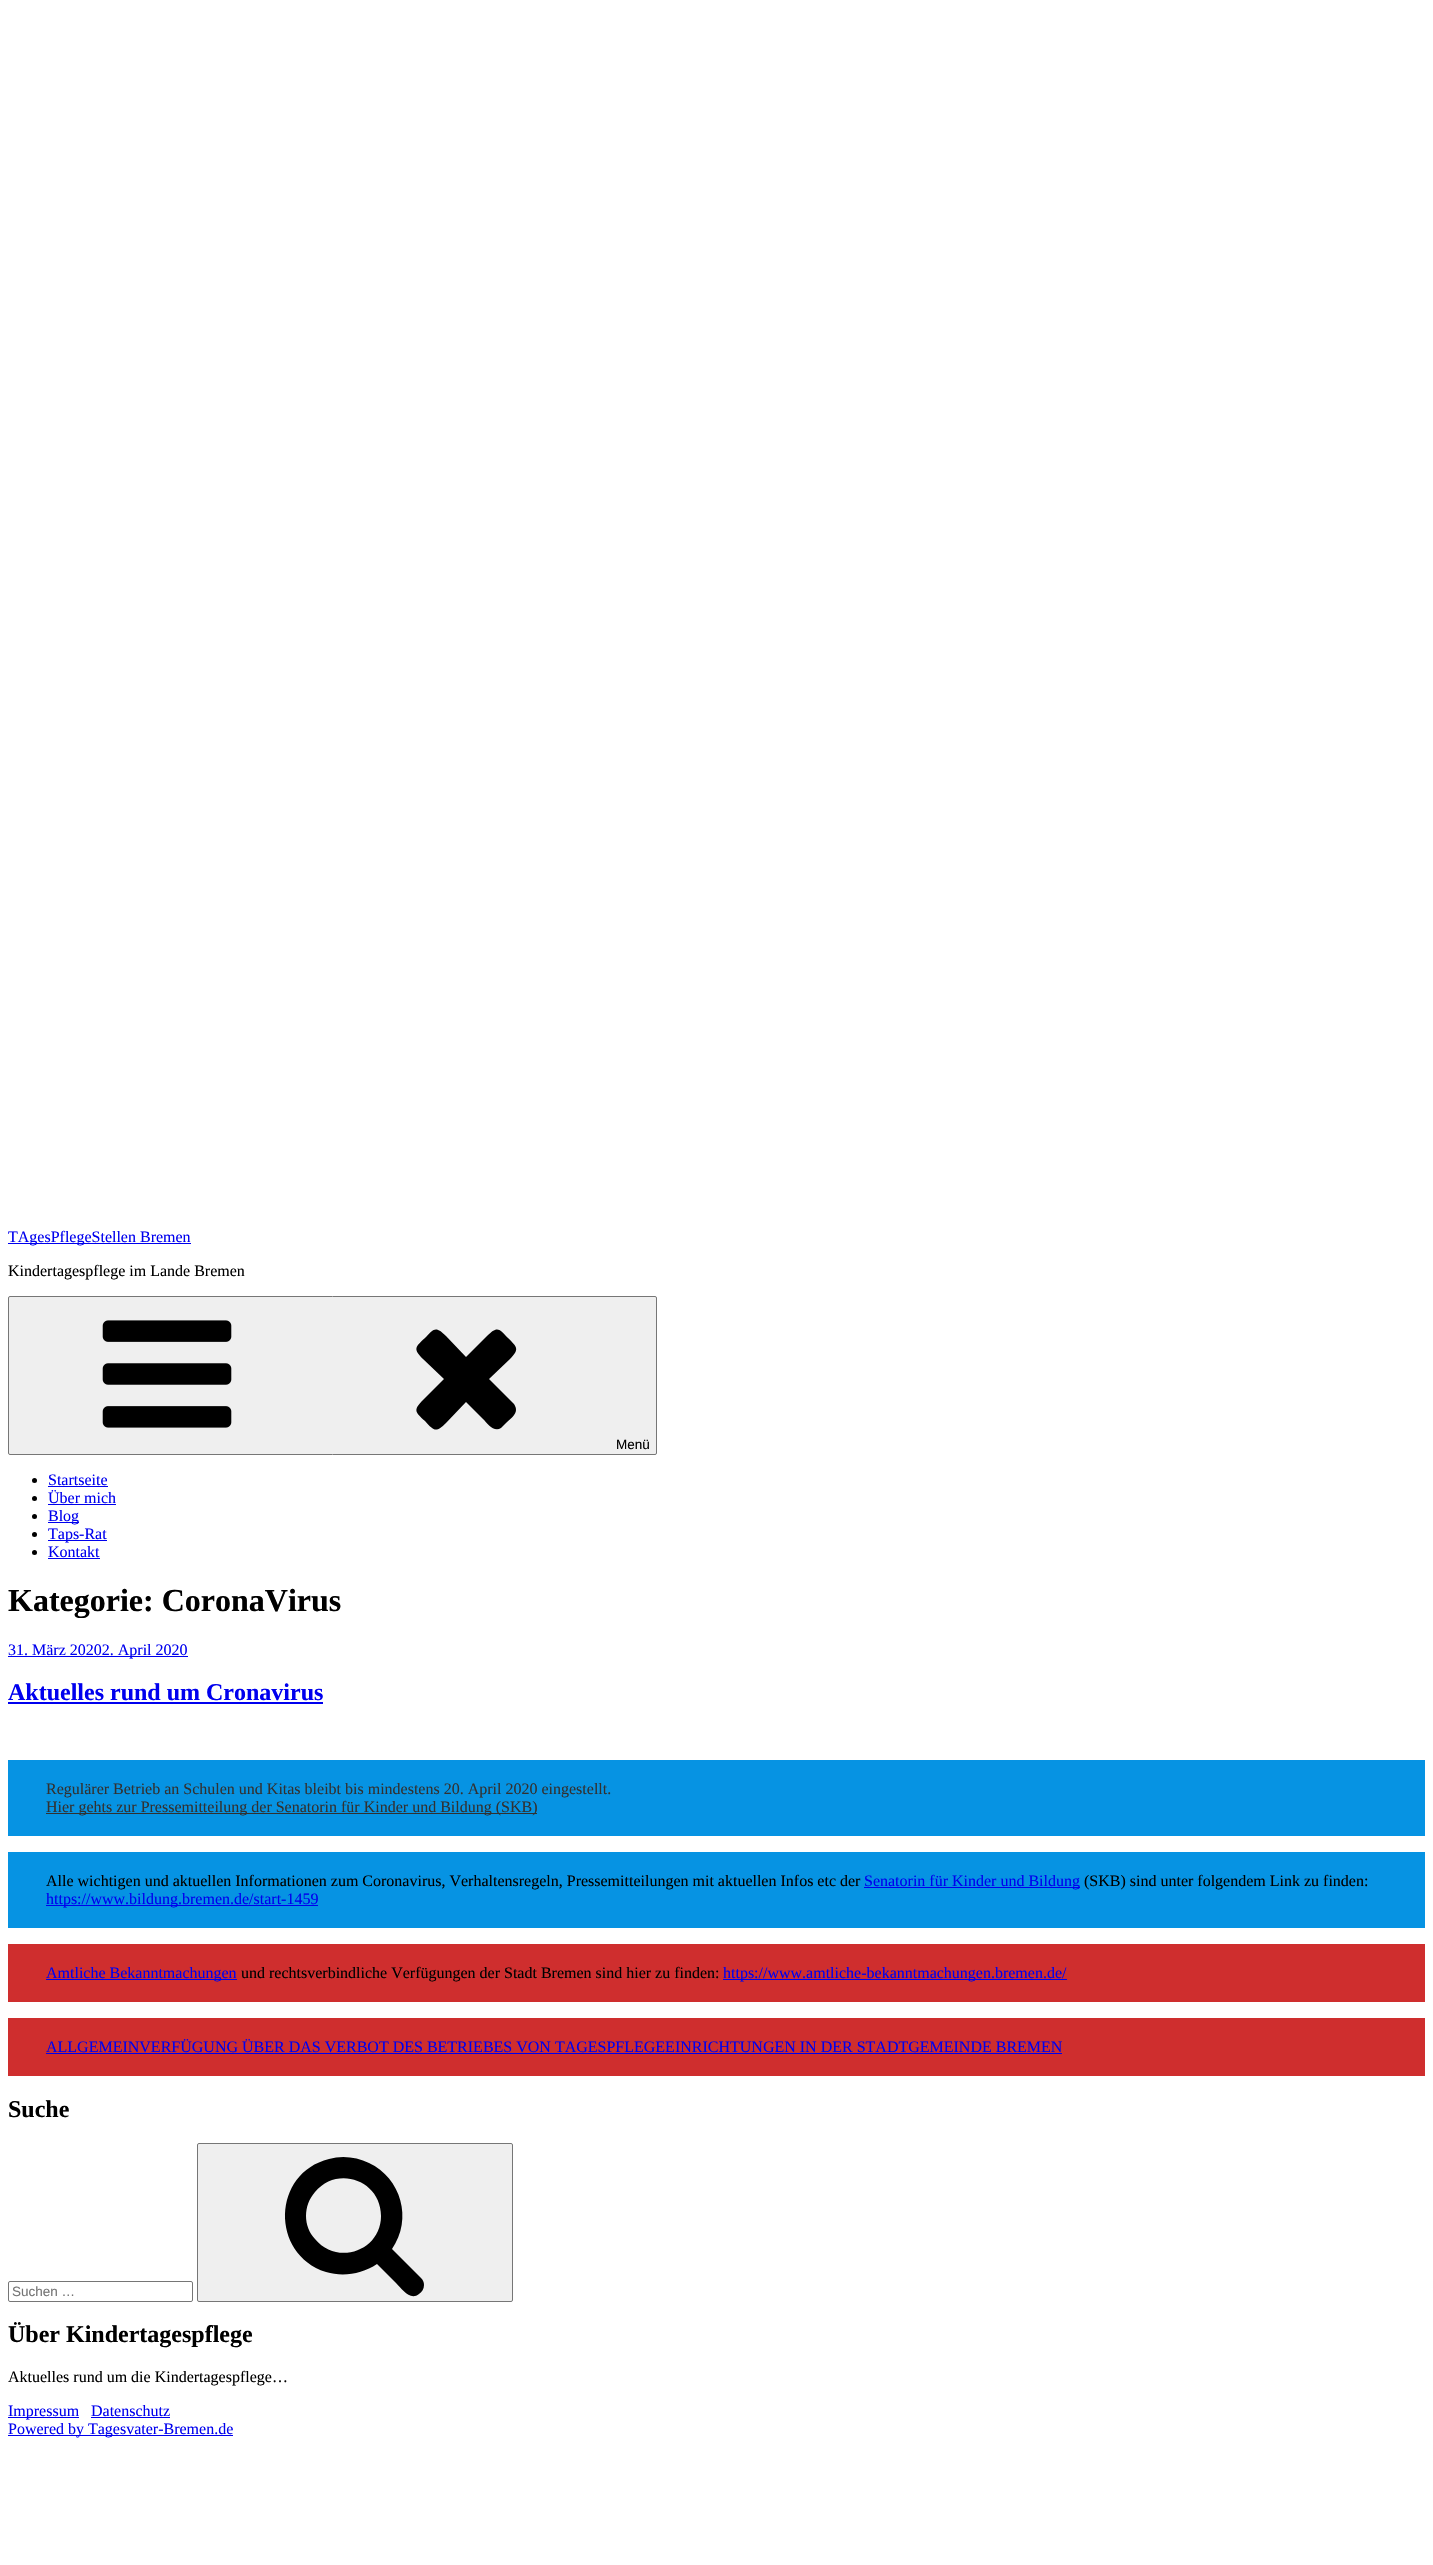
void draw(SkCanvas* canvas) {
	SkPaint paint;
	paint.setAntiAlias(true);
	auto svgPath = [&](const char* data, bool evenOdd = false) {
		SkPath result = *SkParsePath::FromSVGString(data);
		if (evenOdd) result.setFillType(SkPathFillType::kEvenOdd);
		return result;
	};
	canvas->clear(0xffffffff);
	paint.setColor(0xff0000ee);
	canvas->drawRect(SkRect::MakeXYWH(8, 1243, 183, 1), paint);
	SkFont f1(fontMgr->matchFamilyStyle("Liberation Serif", SkFontStyle::Normal()), 16);
	f1.setSubpixel(true);
	canvas->drawString("TAgesPflegeStellen Bremen", 8, 1242, f1, paint);
	paint.setColor(0xff000000);
	canvas->drawString("Kindertagespflege im Lande Bremen", 8, 1276, f1, paint);
	paint.setColor(0xffefefef);
	canvas->drawRoundRect(SkRect::MakeXYWH(8.5, 1296.5, 648, 158), 1.5, 1.5, paint);
	paint.setStroke(true);
	paint.setStrokeWidth(1);
	paint.setColor(0xff767676);
	canvas->drawRoundRect(SkRect::MakeXYWH(8.5, 1296.5, 648, 158), 1.5, 1.5, paint);
	canvas->drawImageRect(SkImages::DeferredFromEncodedData(SkData::MakeFromFileName("img1.png")), SkRect::MakeXYWH(102, 1320, 130, 108), SkSamplingOptions());
	paint.setStroke(false);
	paint.setColor(0xff000000);
	canvas->drawPath(svgPath("M516 1410C516 1415 510 1419 506 1423L501 1428C494 1433 487 1423 483 1419L466 1402L446 1423C436 1433 434 1431 425 1421C415 1412 413 1410 423 1400L444 1379L423 1359C413 1349 415 1347 425 1338C434 1328 436 1326 446 1336L466 1357L487 1336C497 1326 499 1328 508 1338C517 1347 520 1349 510 1359L489 1379L514 1404C515 1406 516 1407 516 1410Z"), paint);
	SkFont f2(fontMgr->matchFamilyStyle("Liberation Sans", SkFontStyle::Normal()), 13.5);
	f2.setSubpixel(true);
	canvas->drawString("Menü", 616, 1449, f2, paint);
	canvas->drawCircle(34.5, 1480.5, 2.5, paint);
	paint.setColor(0xff0000ee);
	canvas->drawString("Startseite", 48, 1485, f1, paint);
	canvas->drawRect(SkRect::MakeXYWH(48, 1486, 60, 1), paint);
	paint.setColor(0xff000000);
	canvas->drawCircle(34.5, 1498.5, 2.5, paint);
	paint.setColor(0xff0000ee);
	canvas->drawString("Über mich", 48, 1503, f1, paint);
	canvas->drawRect(SkRect::MakeXYWH(48, 1504, 68, 1), paint);
	paint.setColor(0xff000000);
	canvas->drawCircle(34.5, 1516.5, 2.5, paint);
	paint.setColor(0xff0000ee);
	canvas->drawRect(SkRect::MakeXYWH(48, 1522, 31, 1), paint);
	canvas->drawString("Blog", 48, 1521, f1, paint);
	paint.setColor(0xff000000);
	canvas->drawCircle(34.5, 1534.5, 2.5, paint);
	paint.setColor(0xff0000ee);
	canvas->drawRect(SkRect::MakeXYWH(48, 1540, 59, 1), paint);
	canvas->drawString("Taps-Rat", 48, 1539, f1, paint);
	paint.setColor(0xff000000);
	canvas->drawCircle(34.5, 1552.5, 2.5, paint);
	paint.setColor(0xff0000ee);
	canvas->drawString("Kontakt", 48, 1557, f1, paint);
	canvas->drawRect(SkRect::MakeXYWH(48, 1558, 52, 1), paint);
	SkFont f3(fontMgr->matchFamilyStyle("Liberation Serif", SkFontStyle::Bold()), 32);
	f3.setSubpixel(true);
	paint.setColor(0xff000000);
	canvas->drawString("Kategorie: CoronaVirus", 8, 1611, f3, paint);
	paint.setColor(0xff0000ee);
	canvas->drawRect(SkRect::MakeXYWH(8, 1656, 180, 1), paint);
	canvas->drawString("31. März 20202. April 2020", 8, 1655, f1, paint);
	SkFont f4(fontMgr->matchFamilyStyle("Liberation Serif", SkFontStyle::Bold()), 24);
	f4.setSubpixel(true);
	canvas->drawString("Aktuelles rund um Cronavirus", 8, 1700, f4, paint);
	canvas->drawRect(SkRect::MakeXYWH(8, 1702, 315, 2), paint);
	paint.setColor(0xff0693e3);
	canvas->drawRect(SkRect::MakeXYWH(8, 1760, 1417, 76), paint);
	paint.setColor(0xff313131);
	canvas->drawString("Regulärer Betrieb an Schulen und Kitas bleibt bis mindestens 20. April 2020 eingestellt.", 46, 1794, f1, paint);
	canvas->drawRect(SkRect::MakeXYWH(46, 1813, 491, 1), paint);
	canvas->drawString("Hier gehts zur Pressemitteilung der Senatorin für Kinder und Bildung (SKB)", 46, 1812, f1, paint);
	paint.setColor(0xff0693e3);
	canvas->drawRect(SkRect::MakeXYWH(8, 1852, 1417, 76), paint);
	paint.setColor(0xff000000);
	canvas->drawString("Alle wichtigen und aktuellen Informationen zum Coronavirus, Verhaltensregeln, Pressemitteilungen mit aktuellen Infos etc der", 46, 1886, f1, paint);
	paint.setColor(0xff0000ee);
	canvas->drawRect(SkRect::MakeXYWH(864, 1887, 216, 1), paint);
	canvas->drawString("Senatorin für Kinder und Bildung", 864, 1886, f1, paint);
	paint.setColor(0xff000000);
	canvas->drawString("(SKB) sind unter folgendem Link zu finden:", 1084, 1886, f1, paint);
	paint.setColor(0xff0000ee);
	canvas->drawRect(SkRect::MakeXYWH(46, 1905, 272, 1), paint);
	canvas->drawString("https://www.bildung.bremen.de/start-1459", 46, 1904, f1, paint);
	paint.setColor(0xffcf2e2e);
	canvas->drawRect(SkRect::MakeXYWH(8, 1944, 1417, 58), paint);
	paint.setColor(0xff0000ee);
	canvas->drawRect(SkRect::MakeXYWH(46, 1979, 191, 1), paint);
	canvas->drawString("Amtliche Bekanntmachungen", 46, 1978, f1, paint);
	paint.setColor(0xff000000);
	canvas->drawString("und rechtsverbindliche Verfügungen der Stadt Bremen sind hier zu finden:", 241, 1978, f1, paint);
	paint.setColor(0xff0000ee);
	canvas->drawRect(SkRect::MakeXYWH(723, 1979, 344, 1), paint);
	canvas->drawString("https://www.amtliche-bekanntmachungen.bremen.de/", 723, 1978, f1, paint);
	paint.setColor(0xffcf2e2e);
	canvas->drawRect(SkRect::MakeXYWH(8, 2018, 1417, 58), paint);
	paint.setColor(0xff0000ee);
	canvas->drawString("ALLGEMEINVERFÜGUNG ÜBER DAS VERBOT DES BETRIEBES VON TAGESPFLEGEEINRICHTUNGEN IN DER STADTGEMEINDE BREMEN", 46, 2052, f1, paint);
	canvas->drawRect(SkRect::MakeXYWH(46, 2053, 1016, 1), paint);
	paint.setColor(0xff000000);
	canvas->drawString("Suche", 8, 2117, f4, paint);
	paint.setStroke(true);
	paint.setColor(0xff767676);
	canvas->drawRoundRect(SkRect::MakeXYWH(8.5, 2281.5, 184, 20), 1.5, 1.5, paint);
	paint.setStroke(false);
	paint.setColor(0xff757575);
	canvas->drawString("Suchen …", 12, 2296, f2, paint);
	paint.setColor(0xffefefef);
	canvas->drawRoundRect(SkRect::MakeXYWH(197.5, 2143.5, 315, 158), 1.5, 1.5, paint);
	paint.setStroke(true);
	paint.setColor(0xff767676);
	canvas->drawRoundRect(SkRect::MakeXYWH(197.5, 2143.5, 315, 158), 1.5, 1.5, paint);
	paint.setStroke(false);
	paint.setColor(0xff000000);
	canvas->drawPath(svgPath("M381 2216C381 2180 337 2165 315 2192C309 2199 306 2207 306 2216C306 2224 309 2233 315 2239C337 2266 381 2251 381 2216ZM424 2285C424 2289 422 2292 419 2294C410 2301 402 2289 396 2283L377 2264C362 2274 343 2277 326 2272C270 2254 272 2173 329 2159C342 2155 357 2157 369 2163C401 2178 413 2219 392 2249L421 2278C423 2280 424 2282 424 2285Z"), paint);
	canvas->drawString("Über Kindertagespflege", 8, 2342, f4, paint);
	canvas->drawString("Aktuelles rund um die Kindertagespflege…", 8, 2382, f1, paint);
	paint.setColor(0xff0000ee);
	canvas->drawRect(SkRect::MakeXYWH(8, 2417, 71, 1), paint);
	canvas->drawString("Impressum", 8, 2416, f1, paint);
	canvas->drawString("Datenschutz", 91, 2416, f1, paint);
	canvas->drawRect(SkRect::MakeXYWH(91, 2417, 79, 1), paint);
	canvas->drawRect(SkRect::MakeXYWH(8, 2435, 225, 1), paint);
	canvas->drawString("Powered by Tagesvater-Bremen.de", 8, 2434, f1, paint);
}
